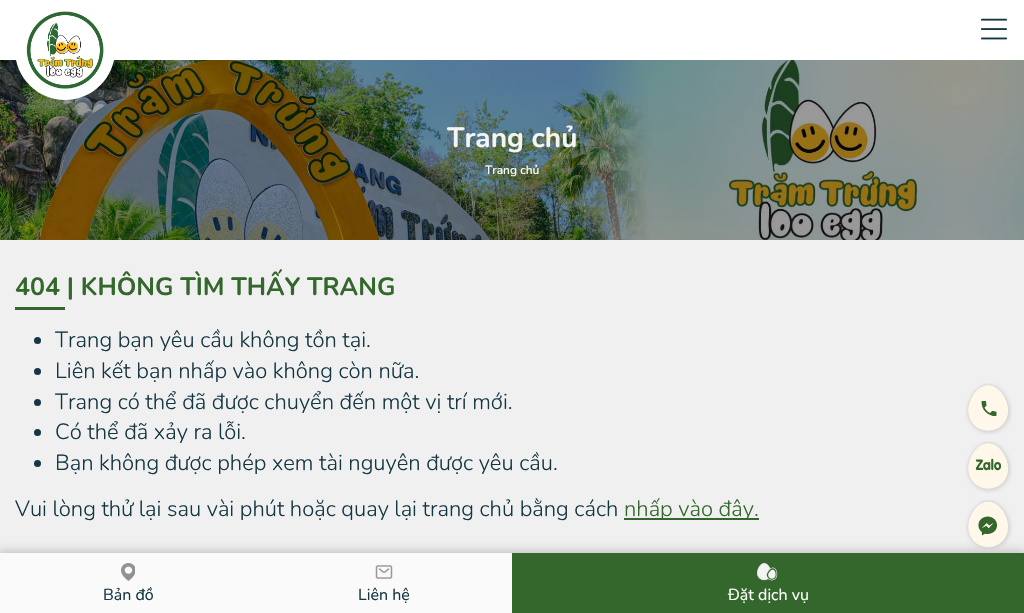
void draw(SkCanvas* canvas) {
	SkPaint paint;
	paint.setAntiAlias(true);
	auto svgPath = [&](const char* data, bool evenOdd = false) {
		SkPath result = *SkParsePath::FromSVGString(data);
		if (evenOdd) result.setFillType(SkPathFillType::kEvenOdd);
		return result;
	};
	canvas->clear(0xfff0f0f0);
	paint.setColor(0xffffffff);
	canvas->drawRect(SkRect::MakeXYWH(0, 0, 1024, 60), paint);
	paint.setColor(0xff000000);
	canvas->drawRect(SkRect::MakeXYWH(0, 60, 1024, 180), paint);
	canvas->drawImageRect(SkImages::DeferredFromEncodedData(SkData::MakeFromFileName("img3.png")), SkRect::MakeXYWH(0, 60, 1024, 180), SkSamplingOptions());
	paint.setColor(0xffffffff);
	canvas->drawPath(svgPath("M15 0H115V50C115 77.5 92.5 100 65 100C37.5 100 15 77.5 15 50Z"), paint);
	canvas->drawImageRect(SkImages::DeferredFromEncodedData(SkData::MakeFromFileName("img1.png")), SkRect::MakeXYWH(26, 11, 78, 78), SkSamplingOptions());
	canvas->drawImageRect(SkImages::DeferredFromEncodedData(SkData::MakeFromFileName("img2.png")), SkRect::MakeXYWH(981, 18, 26, 22), SkSamplingOptions());
	SkFont f1(fontMgr->matchFamilyStyle("Nunito", SkFontStyle::Bold()), 28);
	f1.setSubpixel(true);
	paint.setColor(0xfff4f4f4);
	canvas->drawString("Trang chủ", 447, 147, f1, paint);
	SkFont f2(fontMgr->matchFamilyStyle("Nunito", SkFontStyle(500, SkFontStyle::kNormal_Width, SkFontStyle::kUpright_Slant)), 12);
	f2.setSubpixel(true);
	paint.setColor(0xffffffff);
	canvas->drawString("Trang chủ", 485, 174, f2, paint);
	SkFont f3(fontMgr->matchFamilyStyle("Nunito", SkFontStyle::Bold()), 25);
	f3.setSubpixel(true);
	paint.setColor(0xff34672c);
	canvas->drawString("404 | KHÔNG TÌM THẤY TRANG", 15, 295, f3, paint);
	canvas->drawRect(SkRect::MakeXYWH(15, 307, 50, 3), paint);
	paint.setColor(0xff153744);
	canvas->drawCircle(37.5, 340.5, 3.5, paint);
	SkFont f4(fontMgr->matchFamilyStyle("Nunito", SkFontStyle(300, SkFontStyle::kNormal_Width, SkFontStyle::kUpright_Slant)), 22);
	f4.setSubpixel(true);
	canvas->drawString("Trang bạn yêu cầu không tồn tại.", 55, 347, f4, paint);
	canvas->drawCircle(37.5, 371.5, 3.5, paint);
	canvas->drawString("Liên kết bạn nhấp vào không còn nữa.", 55, 378, f4, paint);
	canvas->drawCircle(37.5, 402.5, 3.5, paint);
	canvas->drawString("Trang có thể đã được chuyển đến một vị trí mới.", 55, 409, f4, paint);
	canvas->drawCircle(37.5, 432.5, 3.5, paint);
	canvas->drawString("Có thể đã xảy ra lỗi.", 55, 439, f4, paint);
	canvas->drawCircle(37.5, 463.5, 3.5, paint);
	canvas->drawString("Bạn không được phép xem tài nguyên được yêu cầu.", 55, 470, f4, paint);
	canvas->drawString("Vui lòng thử lại sau vài phút hoặc quay lại trang chủ bằng cách", 15, 516, f4, paint);
	paint.setColor(0xff34672c);
	canvas->drawRect(SkRect::MakeXYWH(624, 518, 135, 2), paint);
	canvas->drawString("nhấp vào đây.", 624, 516, f4, paint);
	canvas->drawImageRect(SkImages::DeferredFromEncodedData(SkData::MakeFromFileName("img4.png")), SkRect::MakeXYWH(965, 383, 47, 52), SkSamplingOptions());
	canvas->drawImageRect(SkImages::DeferredFromEncodedData(SkData::MakeFromFileName("img5.png")), SkRect::MakeXYWH(965, 441, 47, 52), SkSamplingOptions());
	paint.setColor(0x33000000);
	paint.setMaskFilter(SkMaskFilter::MakeBlur(kNormal_SkBlurStyle, 5));
	canvas->drawRect(SkRect::MakeXYWH(-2, 551, 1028, 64), paint);
	paint.setMaskFilter(nullptr);
	canvas->drawImageRect(SkImages::DeferredFromEncodedData(SkData::MakeFromFileName("img6.png")), SkRect::MakeXYWH(965, 499, 48, 51), SkSamplingOptions());
	paint.setColor(0xfffafafa);
	canvas->drawRect(SkRect::MakeXYWH(0, 553, 512, 60), paint);
	canvas->drawImageRect(SkImages::DeferredFromEncodedData(SkData::MakeFromFileName("img7.png")), SkRect::MakeXYWH(121, 563, 14, 18), SkSamplingOptions());
	SkFont f5(fontMgr->matchFamilyStyle("Nunito", SkFontStyle::Normal()), 16);
	f5.setSubpixel(true);
	paint.setColor(0xff153744);
	canvas->drawString("Bản đồ", 103, 600, f5, paint);
	canvas->drawImageRect(SkImages::DeferredFromEncodedData(SkData::MakeFromFileName("img8.png")), SkRect::MakeXYWH(375, 565, 18, 14), SkSamplingOptions());
	canvas->drawString("Liên hệ", 358, 600, f5, paint);
	paint.setColor(0xff34672c);
	canvas->drawRect(SkRect::MakeXYWH(512, 553, 512, 60), paint);
	canvas->drawImageRect(SkImages::DeferredFromEncodedData(SkData::MakeFromFileName("img9.png")), SkRect::MakeXYWH(757, 563, 21, 18), SkSamplingOptions());
	paint.setColor(0xffffffff);
	canvas->drawString("Đặt dịch vụ", 728, 600, f5, paint);
}
